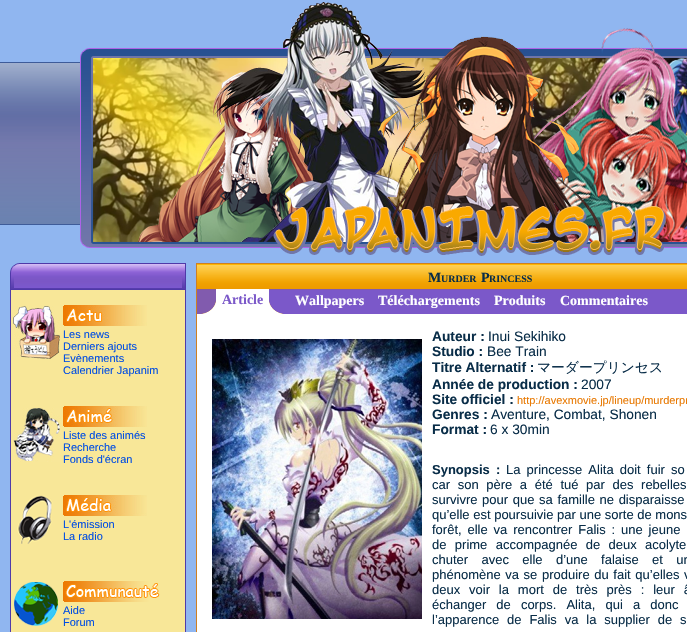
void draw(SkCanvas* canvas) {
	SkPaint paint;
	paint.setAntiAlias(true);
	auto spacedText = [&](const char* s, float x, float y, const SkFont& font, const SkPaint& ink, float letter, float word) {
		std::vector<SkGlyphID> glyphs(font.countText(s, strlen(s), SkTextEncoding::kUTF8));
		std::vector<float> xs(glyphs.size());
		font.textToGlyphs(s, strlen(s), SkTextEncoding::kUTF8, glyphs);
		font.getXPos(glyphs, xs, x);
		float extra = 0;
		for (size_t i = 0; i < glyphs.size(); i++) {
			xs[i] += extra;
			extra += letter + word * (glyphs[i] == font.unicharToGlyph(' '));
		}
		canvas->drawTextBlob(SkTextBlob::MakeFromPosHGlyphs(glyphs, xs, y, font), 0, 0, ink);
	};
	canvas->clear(0xff90b6f0);
	canvas->drawImageRect(SkImages::DeferredFromEncodedData(SkData::MakeFromFileName("img1.png")), SkRect::MakeXYWH(0, 62, 80, 163), SkSamplingOptions());
	canvas->drawImageRect(SkImages::DeferredFromEncodedData(SkData::MakeFromFileName("img2.png")), SkRect::MakeXYWH(80, 2, 607, 254), SkSamplingOptions());
	paint.setColor(0xfff8e798);
	canvas->drawRect(SkRect::MakeXYWH(11, 290, 174, 342), paint);
	canvas->drawImageRect(SkImages::DeferredFromEncodedData(SkData::MakeFromFileName("img3.png")), SkRect::MakeXYWH(10, 263, 176, 27), SkSamplingOptions());
	canvas->drawImageRect(SkImages::DeferredFromEncodedData(SkData::MakeFromFileName("img4.png")), SkRect::MakeXYWH(13, 306, 48, 53), SkSamplingOptions());
	paint.setColor(0xff503ba9);
	canvas->drawRect(SkRect::MakeXYWH(185, 290, 1, 342), paint);
	canvas->drawRect(SkRect::MakeXYWH(10, 290, 1, 342), paint);
	canvas->drawImageRect(SkImages::DeferredFromEncodedData(SkData::MakeFromFileName("img5.png")), SkRect::MakeXYWH(63, 305, 84, 21), SkSamplingOptions());
	SkFont f1(fontMgr->matchFamilyStyle("Liberation Sans", SkFontStyle::Normal()), 11);
	f1.setSubpixel(true);
	paint.setColor(0xff004de3);
	canvas->drawString("Les news", 63, 338, f1, paint);
	canvas->drawString("Derniers ajouts", 63, 350, f1, paint);
	canvas->drawString("Evènements", 63, 362, f1, paint);
	canvas->drawString("Calendrier Japanim", 63, 374, f1, paint);
	canvas->drawImageRect(SkImages::DeferredFromEncodedData(SkData::MakeFromFileName("img6.png")), SkRect::MakeXYWH(13, 408, 48, 54), SkSamplingOptions());
	canvas->drawImageRect(SkImages::DeferredFromEncodedData(SkData::MakeFromFileName("img7.png")), SkRect::MakeXYWH(63, 406, 84, 21), SkSamplingOptions());
	canvas->drawString("Liste des animés", 63, 439, f1, paint);
	canvas->drawString("Recherche", 63, 451, f1, paint);
	canvas->drawString("Fonds d'écran", 63, 463, f1, paint);
	canvas->drawImageRect(SkImages::DeferredFromEncodedData(SkData::MakeFromFileName("img8.png")), SkRect::MakeXYWH(17, 495, 36, 49), SkSamplingOptions());
	canvas->drawImageRect(SkImages::DeferredFromEncodedData(SkData::MakeFromFileName("img9.png")), SkRect::MakeXYWH(63, 495, 84, 21), SkSamplingOptions());
	canvas->drawString("L'émission", 63, 528, f1, paint);
	canvas->drawString("La radio", 63, 540, f1, paint);
	canvas->drawImageRect(SkImages::DeferredFromEncodedData(SkData::MakeFromFileName("img10.png")), SkRect::MakeXYWH(14, 582, 44, 44), SkSamplingOptions());
	canvas->drawImageRect(SkImages::DeferredFromEncodedData(SkData::MakeFromFileName("img11.png")), SkRect::MakeXYWH(63, 581, 97, 21), SkSamplingOptions());
	canvas->drawString("Aide", 63, 614, f1, paint);
	canvas->drawString("Forum", 63, 626, f1, paint);
	paint.setColor(0xffffffff);
	canvas->drawRect(SkRect::MakeXYWH(197, 314, 490, 318), paint);
	canvas->drawImageRect(SkImages::DeferredFromEncodedData(SkData::MakeFromFileName("img12.png")), SkRect::MakeXYWH(197, 264, 490, 25), SkSamplingOptions());
	paint.setStroke(true);
	paint.setStrokeWidth(1);
	paint.setColor(0xffce7f23);
	canvas->drawRect(SkRect::MakeXYWH(196.5, 263.5, 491, 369), paint);
	SkFont f2(fontMgr->matchFamilyStyle("Liberation Serif", SkFontStyle::Bold()), 14);
	f2.setSubpixel(true);
	paint.setStroke(false);
	paint.setColor(0xff092d48);
	canvas->drawString("M", 428, 282, f2, paint);
	SkFont f3(fontMgr->matchFamilyStyle("Liberation Serif", SkFontStyle::Bold()), 10);
	f3.setSubpixel(true);
	canvas->drawString("URDER", 441, 282, f3, paint);
	canvas->drawString("P", 481, 282, f2, paint);
	canvas->drawString("RINCESS", 489, 282, f3, paint);
	paint.setColor(0xff7b58c9);
	canvas->drawRect(SkRect::MakeXYWH(288, 290, 399, 24), paint);
	paint.setColor(0xff815bae);
	canvas->drawRect(SkRect::MakeXYWH(288, 289, 399, 1), paint);
	paint.setColor(0xffffffff);
	canvas->drawRect(SkRect::MakeXYWH(197, 289, 91, 25), paint);
	canvas->drawImageRect(SkImages::DeferredFromEncodedData(SkData::MakeFromFileName("img13.png")), SkRect::MakeXYWH(197, 289, 19, 25), SkSamplingOptions());
	canvas->drawImageRect(SkImages::DeferredFromEncodedData(SkData::MakeFromFileName("img14.png")), SkRect::MakeXYWH(269, 289, 19, 25), SkSamplingOptions());
	paint.setColor(0xff7b58c9);
	canvas->drawString("Article", 222, 304, f2, paint);
	paint.setColor(0xffffffff);
	canvas->drawString("Wallpapers", 295, 305, f2, paint);
	canvas->drawString("Téléchargements", 378, 305, f2, paint);
	canvas->drawString("Produits", 494, 305, f2, paint);
	canvas->drawString("Commentaires", 560, 305, f2, paint);
	canvas->drawImageRect(SkImages::DeferredFromEncodedData(SkData::MakeFromFileName("img15.png")), SkRect::MakeXYWH(212, 339, 210, 280), SkSamplingOptions());
	SkFont f4(fontMgr->matchFamilyStyle("Liberation Sans", SkFontStyle::Bold()), 13.75);
	f4.setSubpixel(true);
	paint.setColor(0xff092d48);
	canvas->drawString("Auteur :", 432, 341, f4, paint);
	SkFont f5(fontMgr->matchFamilyStyle("Liberation Sans", SkFontStyle::Normal()), 13.75);
	f5.setSubpixel(true);
	canvas->drawString("Inui Sekihiko", 488, 341, f5, paint);
	canvas->drawString("Studio :", 432, 356, f4, paint);
	canvas->drawString("Bee Train", 487, 356, f5, paint);
	canvas->drawString("Titre Alternatif :", 432, 372, f4, paint);
	SkFont f6(fontMgr->matchFamilyStyle("WenQuanYi Zen Hei", SkFontStyle(500, SkFontStyle::kNormal_Width, SkFontStyle::kUpright_Slant)), 13.75);
	f6.setSubpixel(true);
	canvas->drawString("マーダープリンセス", 537, 372, f6, paint);
	canvas->drawString("Année de production :", 432, 389, f4, paint);
	canvas->drawString("2007", 581, 389, f5, paint);
	canvas->drawString("Site officiel :", 432, 404, f4, paint);
	paint.setColor(0xffe87800);
	canvas->drawString("http://avexmovie.jp/lineup/murderpr", 517, 404, f1, paint);
	paint.setColor(0xff092d48);
	canvas->drawString("Genres :", 432, 419, f4, paint);
	canvas->drawString("Aventure, Combat, Shonen", 491, 419, f5, paint);
	canvas->drawString("Format :", 432, 434, f4, paint);
	canvas->drawString("6 x 30min", 490, 434, f5, paint);
	SkFont f7(fontMgr->matchFamilyStyle("Liberation Sans", SkFontStyle::Bold()), 13);
	f7.setSubpixel(true);
	spacedText("Synopsis :", 432, 474, f7, paint, 0, 2.5);
	SkFont f8(fontMgr->matchFamilyStyle("Liberation Sans", SkFontStyle::Normal()), 13);
	f8.setSubpixel(true);
	spacedText("La princesse Alita doit fuir so", 506, 474, f8, paint, 0, 2.5);
	spacedText("car son père a été tué par des rebelles", 432, 489, f8, paint, 0, 4);
	spacedText("survivre pour que sa famille ne disparaisse", 432, 504, f8, paint, 0, 1);
	canvas->drawString("qu’elle est poursuivie par une sorte de mons", 432, 519, f8, paint);
	spacedText("forêt, elle va rencontrer Falis : une jeune", 432, 534, f8, paint, 0, 2.25);
	spacedText("de prime accompagnée de deux acolyte", 432, 549, f8, paint, 0, 4.75);
	spacedText("chuter avec elle d’une falaise et un", 432, 564, f8, paint, 0, 9.75);
	spacedText("phénomène va se produire du fait qu’elles v", 432, 579, f8, paint, 0, 1);
	spacedText("deux voir la mort de très près : leur â", 432, 594, f8, paint, 0, 5.25);
	spacedText("échanger de corps. Alita, qui a donc", 432, 609, f8, paint, 0, 6.5);
	spacedText("l’apparence de Falis va la supplier de s", 432, 624, f8, paint, 0, 4.25);
}
